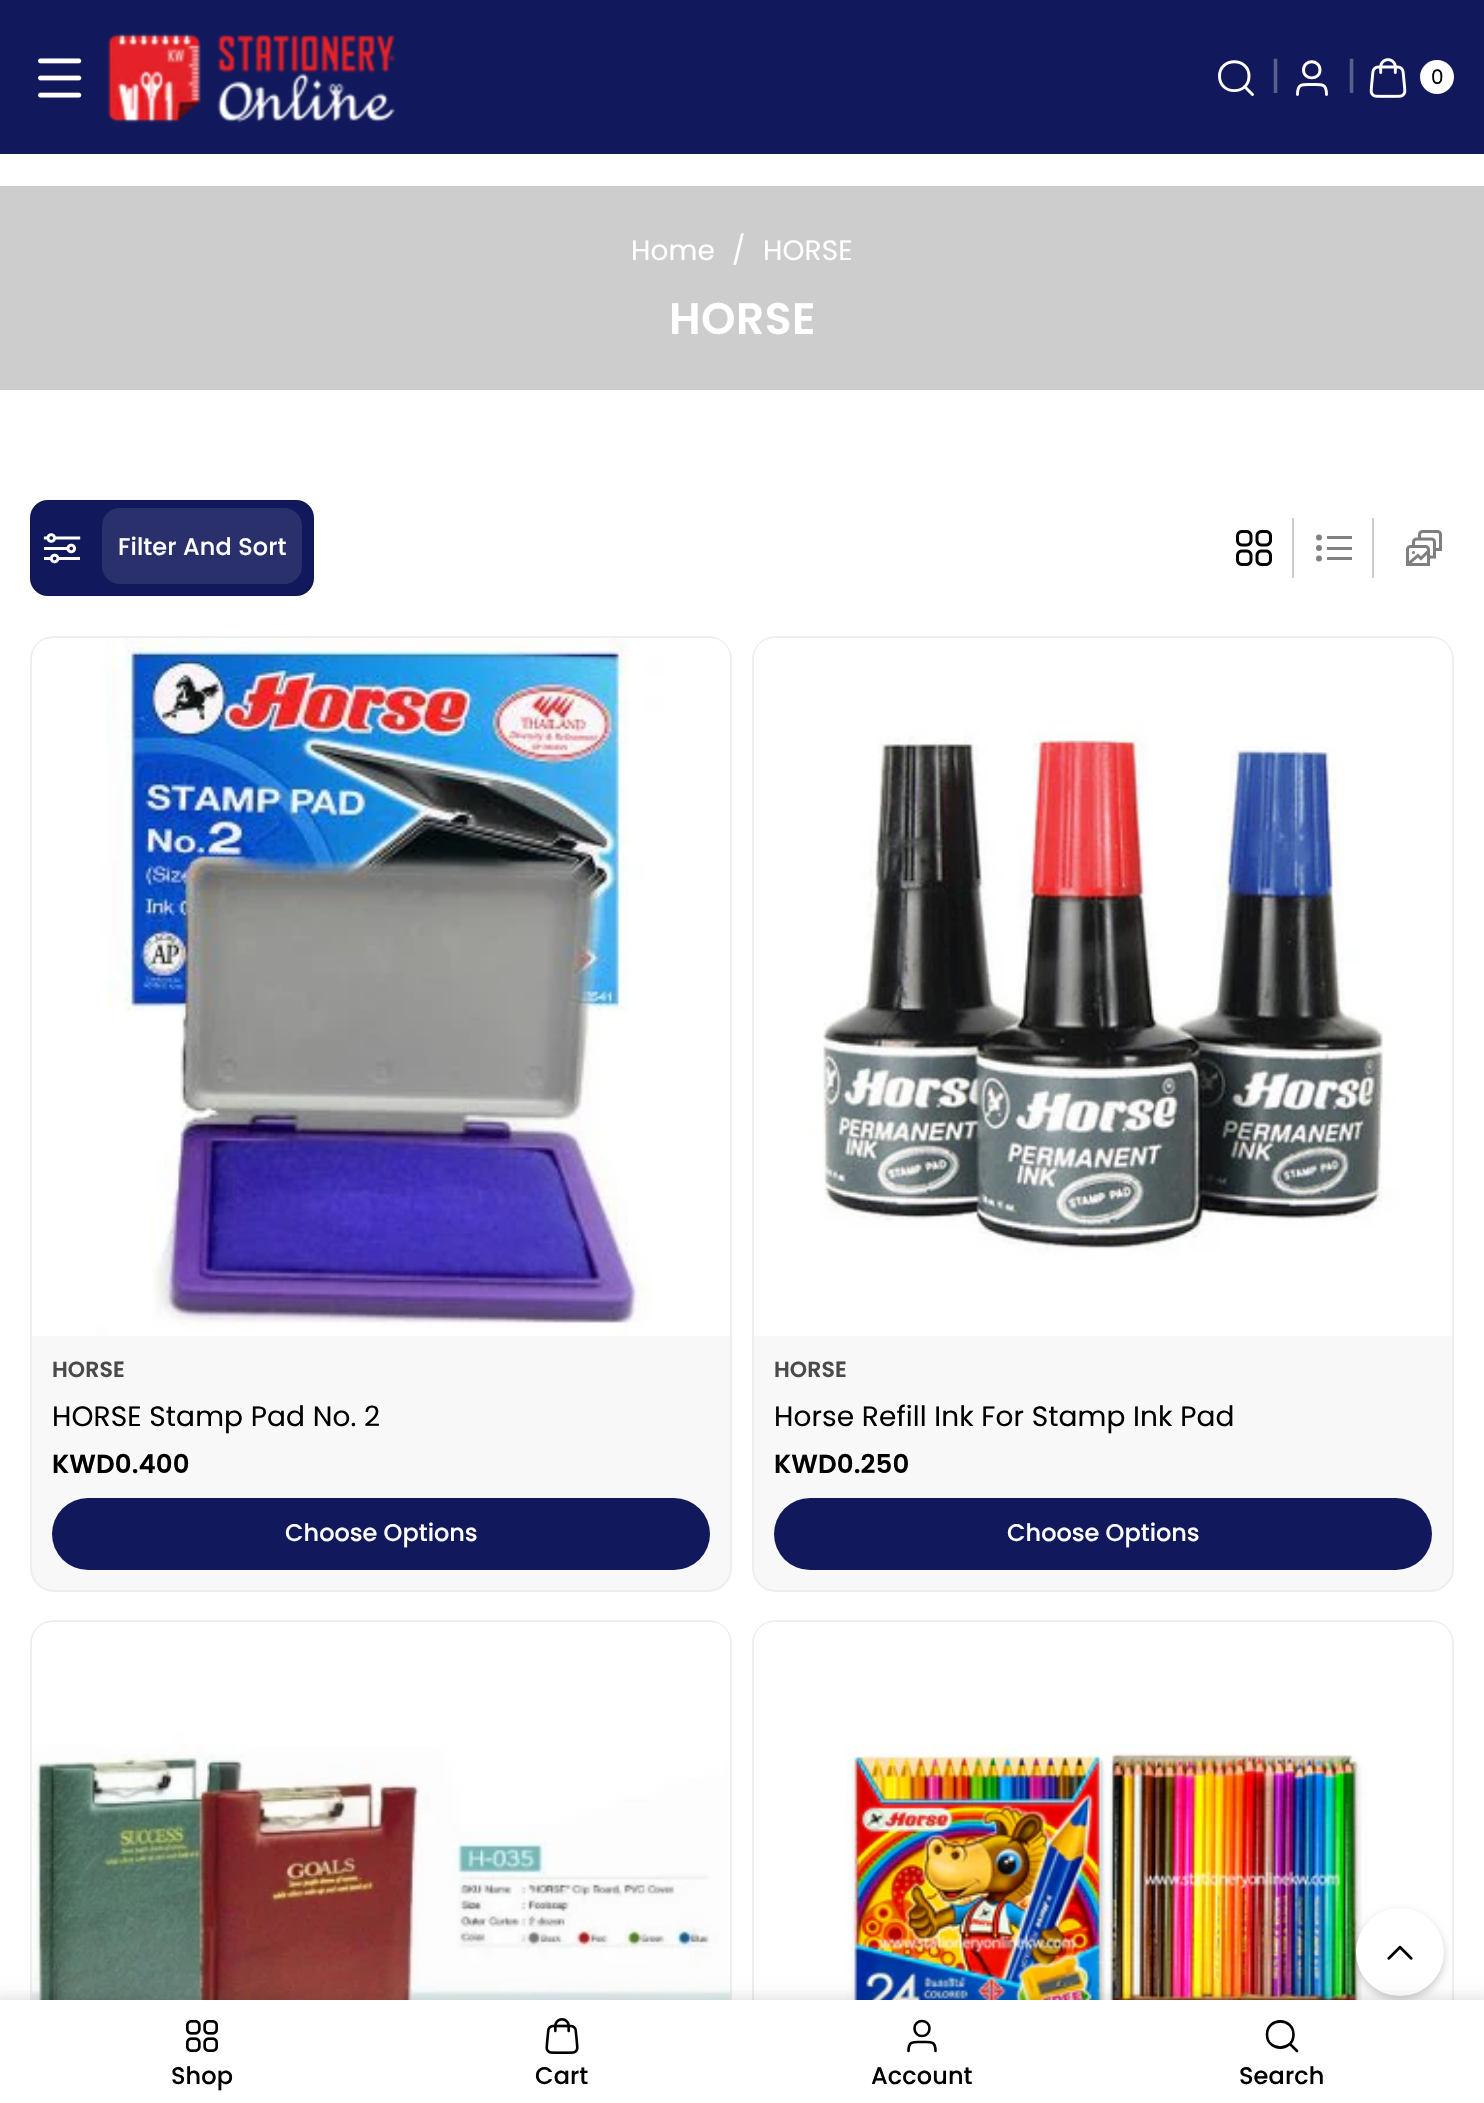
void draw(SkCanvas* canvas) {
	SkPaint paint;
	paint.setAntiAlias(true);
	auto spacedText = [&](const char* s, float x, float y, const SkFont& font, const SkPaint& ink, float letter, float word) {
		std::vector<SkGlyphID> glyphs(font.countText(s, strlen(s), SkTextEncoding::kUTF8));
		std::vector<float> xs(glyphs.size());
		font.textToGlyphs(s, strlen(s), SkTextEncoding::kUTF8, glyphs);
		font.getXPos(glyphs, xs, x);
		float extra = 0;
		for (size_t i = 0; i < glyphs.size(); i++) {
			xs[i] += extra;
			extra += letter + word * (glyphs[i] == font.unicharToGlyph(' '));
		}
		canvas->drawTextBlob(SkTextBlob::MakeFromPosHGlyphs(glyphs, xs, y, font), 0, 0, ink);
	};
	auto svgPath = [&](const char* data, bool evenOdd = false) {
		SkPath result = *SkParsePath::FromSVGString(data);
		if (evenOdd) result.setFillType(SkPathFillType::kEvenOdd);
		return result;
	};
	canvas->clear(0xffffffff);
	paint.setColor(0xff11195c);
	canvas->drawRect(SkRect::MakeXYWH(0, 0, 1484, 154), paint);
	canvas->drawImageRect(SkImages::DeferredFromEncodedData(SkData::MakeFromFileName("img1.png")), SkRect::MakeXYWH(38, 58, 44, 40), SkSamplingOptions());
	canvas->drawImageRect(SkImages::DeferredFromEncodedData(SkData::MakeFromFileName("img2.png")), SkRect::MakeXYWH(107, 33, 289, 90), SkSamplingOptions());
	paint.setStroke(true);
	paint.setStrokeWidth(2.9);
	paint.setStrokeCap(SkPaint::kRound_Cap);
	paint.setStrokeJoin(SkPaint::kRound_Join);
	paint.setColor(0xffffffff);
	canvas->drawPath(svgPath("M1252.5 94.5L1244.5 86.5M1249 76C1249 95.5 1219.5 95.5 1219.5 76C1219.5 57 1249 57 1249 76Z"), paint);
	SkFont f1(fontMgr->matchFamilyStyle("Poppins", SkFontStyle::Normal()), 38);
	f1.setSubpixel(true);
	paint.setStroke(false);
	paint.setColor(0xff585e8d);
	spacedText("|", 1270, 89, f1, paint, 0.1, 0);
	paint.setStroke(true);
	paint.setColor(0xffffffff);
	canvas->drawPath(svgPath("M1326.5 94.5C1326.5 83 1321 84.5 1312 84.5C1303 84.5 1297.5 83 1297.5 94.5M1320 70C1320 80.5 1303.5 80.5 1303.5 70C1303.5 59 1320 59 1320 70Z"), paint);
	paint.setStroke(false);
	paint.setColor(0xff585e8d);
	spacedText("|", 1346, 89, f1, paint, 0.1, 0);
	canvas->drawImageRect(SkImages::DeferredFromEncodedData(SkData::MakeFromFileName("img3.png")), SkRect::MakeXYWH(1369, 58, 38, 40), SkSamplingOptions());
	paint.setColor(0xffffffff);
	canvas->drawCircle(1437, 77, 17, paint);
	SkFont f2(fontMgr->matchFamilyStyle("Poppins", SkFontStyle::Normal()), 20);
	f2.setSubpixel(true);
	paint.setColor(0xff000000);
	spacedText("0", 1431, 84, f2, paint, 0.1, 0);
	paint.setColor(0xffcdcdcd);
	canvas->drawRect(SkRect::MakeXYWH(0, 186, 1484, 204), paint);
	SkFont f3(fontMgr->matchFamilyStyle("Poppins", SkFontStyle::Normal()), 28);
	f3.setSubpixel(true);
	paint.setColor(0xffffffff);
	spacedText("Home", 631, 260, f3, paint, 0.1, 0);
	spacedText("/", 732, 260, f3, paint, 0.1, 0);
	spacedText("HORSE", 763, 260, f3, paint, 0.1, 0);
	SkFont f4(fontMgr->matchFamilyStyle("Poppins", SkFontStyle(600, SkFontStyle::kNormal_Width, SkFontStyle::kUpright_Slant)), 44);
	f4.setSubpixel(true);
	spacedText("HORSE", 669, 334, f4, paint, 0.5, 0);
	paint.setColor(0xff11195c);
	canvas->drawRoundRect(SkRect::MakeXYWH(30, 500, 284, 96), 18, 18, paint);
	paint.setStroke(true);
	paint.setStrokeWidth(2);
	paint.setStrokeCap(SkPaint::kButt_Cap);
	paint.setStrokeJoin(SkPaint::kMiter_Join);
	paint.setColor(0x1a000000);
	canvas->drawRoundRect(SkRect::MakeXYWH(31, 501, 282, 94), 17, 17, paint);
	canvas->drawImageRect(SkImages::DeferredFromEncodedData(SkData::MakeFromFileName("img4.png")), SkRect::MakeXYWH(43, 533, 38, 31), SkSamplingOptions());
	paint.setStroke(false);
	paint.setColor(0xff29306c);
	canvas->drawRoundRect(SkRect::MakeXYWH(102, 508, 200, 76), 18, 18, paint);
	SkFont f5(fontMgr->matchFamilyStyle("Poppins", SkFontStyle(500, SkFontStyle::kNormal_Width, SkFontStyle::kUpright_Slant)), 24);
	f5.setSubpixel(true);
	paint.setColor(0xffffffff);
	spacedText("Filter And Sort", 118, 555, f5, paint, 0.1, 0);
	paint.setColor(0xffcccccc);
	canvas->drawRect(SkRect::MakeXYWH(1292, 518, 2, 60), paint);
	canvas->drawImageRect(SkImages::DeferredFromEncodedData(SkData::MakeFromFileName("img5.png")), SkRect::MakeXYWH(1236, 530, 36, 36), SkSamplingOptions());
	canvas->drawRect(SkRect::MakeXYWH(1372, 518, 2, 60), paint);
	paint.setColor(0xff808080);
	canvas->drawRect(SkRect::MakeXYWH(1327, 536, 25, 3), paint);
	canvas->drawRect(SkRect::MakeXYWH(1327, 547, 25, 3), paint);
	canvas->drawRect(SkRect::MakeXYWH(1327, 557, 25, 3), paint);
	canvas->drawCircle(1319, 537.5, 3, paint);
	canvas->drawCircle(1319, 548, 3, paint);
	canvas->drawCircle(1319, 558.5, 3, paint);
	canvas->drawImageRect(SkImages::DeferredFromEncodedData(SkData::MakeFromFileName("img6.png")), SkRect::MakeXYWH(1406, 530, 36, 36), SkSamplingOptions());
	paint.setColor(0xfff8f8f8);
	canvas->drawRoundRect(SkRect::MakeXYWH(31, 637, 700, 954), 23, 23, paint);
	paint.setStroke(true);
	paint.setColor(0xffeeeeee);
	canvas->drawRoundRect(SkRect::MakeXYWH(31, 637, 700, 954), 23, 23, paint);
	canvas->drawImageRect(SkImages::DeferredFromEncodedData(SkData::MakeFromFileName("img7.png")), SkRect::MakeXYWH(32, 638, 698, 698), SkSamplingOptions());
	SkFont f6(fontMgr->matchFamilyStyle("Poppins", SkFontStyle(600, SkFontStyle::kNormal_Width, SkFontStyle::kUpright_Slant)), 22);
	f6.setSubpixel(true);
	paint.setStroke(false);
	paint.setColor(0xff4a4a4a);
	spacedText("HORSE", 52, 1377, f6, paint, 0.1, 0);
	paint.setColor(0xff000000);
	spacedText("HORSE Stamp Pad No. 2", 52, 1426, f3, paint, 0.1, 0);
	SkFont f7(fontMgr->matchFamilyStyle("Poppins", SkFontStyle(600, SkFontStyle::kNormal_Width, SkFontStyle::kUpright_Slant)), 26);
	f7.setSubpixel(true);
	spacedText("KWD0.400", 52, 1473, f7, paint, 0.1, 0);
	paint.setColor(0xff11195c);
	canvas->drawRoundRect(SkRect::MakeXYWH(52, 1498, 658, 72), 36, 36, paint);
	paint.setColor(0xffffffff);
	canvas->drawString("Choose Options", 285, 1541, f5, paint);
	paint.setColor(0xfff8f8f8);
	canvas->drawRoundRect(SkRect::MakeXYWH(753, 637, 700, 954), 23, 23, paint);
	paint.setStroke(true);
	paint.setColor(0xffeeeeee);
	canvas->drawRoundRect(SkRect::MakeXYWH(753, 637, 700, 954), 23, 23, paint);
	canvas->drawImageRect(SkImages::DeferredFromEncodedData(SkData::MakeFromFileName("img8.png")), SkRect::MakeXYWH(754, 638, 698, 698), SkSamplingOptions());
	paint.setStroke(false);
	paint.setColor(0xff4a4a4a);
	spacedText("HORSE", 774, 1377, f6, paint, 0.1, 0);
	paint.setColor(0xff000000);
	spacedText("Horse Refill Ink For Stamp Ink Pad", 774, 1426, f3, paint, 0.1, 0);
	spacedText("KWD0.250", 774, 1473, f7, paint, 0.1, 0);
	paint.setColor(0xff11195c);
	canvas->drawRoundRect(SkRect::MakeXYWH(774, 1498, 658, 72), 36, 36, paint);
	paint.setColor(0xffffffff);
	canvas->drawString("Choose Options", 1007, 1541, f5, paint);
	paint.setStroke(true);
	paint.setColor(0xffeeeeee);
	canvas->drawRoundRect(SkRect::MakeXYWH(31, 1621, 700, 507), 23, 23, paint);
	canvas->drawImageRect(SkImages::DeferredFromEncodedData(SkData::MakeFromFileName("img9.png")), SkRect::MakeXYWH(32, 1622, 698, 378), SkSamplingOptions());
	canvas->drawRoundRect(SkRect::MakeXYWH(753, 1621, 700, 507), 23, 23, paint);
	canvas->drawImageRect(SkImages::DeferredFromEncodedData(SkData::MakeFromFileName("img10.png")), SkRect::MakeXYWH(754, 1622, 698, 378), SkSamplingOptions());
	paint.setStroke(false);
	paint.setColor(0x33000000);
	paint.setMaskFilter(SkMaskFilter::MakeBlur(kNormal_SkBlurStyle, 4));
	canvas->drawRoundRect(SkRect::MakeXYWH(1356, 1912, 88, 88), 44, 44, paint);
	paint.setMaskFilter(nullptr);
	paint.setColor(0xffffffff);
	canvas->drawCircle(1400, 1952, 44, paint);
	canvas->drawImageRect(SkImages::DeferredFromEncodedData(SkData::MakeFromFileName("img11.png")), SkRect::MakeXYWH(1387, 1945, 26, 15), SkSamplingOptions());
	paint.setColor(0x1a000000);
	paint.setMaskFilter(SkMaskFilter::MakeBlur(kNormal_SkBlurStyle, 6));
	canvas->drawRect(SkRect::MakeXYWH(-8, 1996, 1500, 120), paint);
	paint.setMaskFilter(nullptr);
	paint.setColor(0xffffffff);
	canvas->drawRect(SkRect::MakeXYWH(0, 2000, 1484, 103), paint);
	canvas->drawImageRect(SkImages::DeferredFromEncodedData(SkData::MakeFromFileName("img12.png")), SkRect::MakeXYWH(186, 2020, 32, 32), SkSamplingOptions());
	paint.setColor(0xff000000);
	spacedText("Shop", 171, 2084, f5, paint, 0.1, 0);
	canvas->drawImageRect(SkImages::DeferredFromEncodedData(SkData::MakeFromFileName("img13.png")), SkRect::MakeXYWH(545, 2018, 34, 36), SkSamplingOptions());
	spacedText("Cart", 535, 2084, f5, paint, 0.1, 0);
	paint.setStroke(true);
	paint.setStrokeWidth(2.6);
	paint.setStrokeCap(SkPaint::kRound_Cap);
	paint.setStrokeJoin(SkPaint::kRound_Join);
	canvas->drawPath(svgPath("M935.5 2051C935.5 2040.5 930 2042 922 2042C914 2042 908.5 2040.5 908.5 2051M929.5 2028.5C929.5 2038.5 914.5 2038.5 914.5 2028.5C914.5 2018.5 929.5 2018.5 929.5 2028.5Z"), paint);
	paint.setStroke(false);
	spacedText("Account", 871, 2084, f5, paint, 0.1, 0);
	paint.setStroke(true);
	canvas->drawPath(svgPath("M1297 2051L1290 2044M1293.5 2034.5C1293.5 2052 1267 2052 1267 2034.5C1267 2017 1293.5 2017 1293.5 2034.5Z"), paint);
	paint.setStroke(false);
	spacedText("Search", 1239, 2084, f5, paint, 0.1, 0);
}
